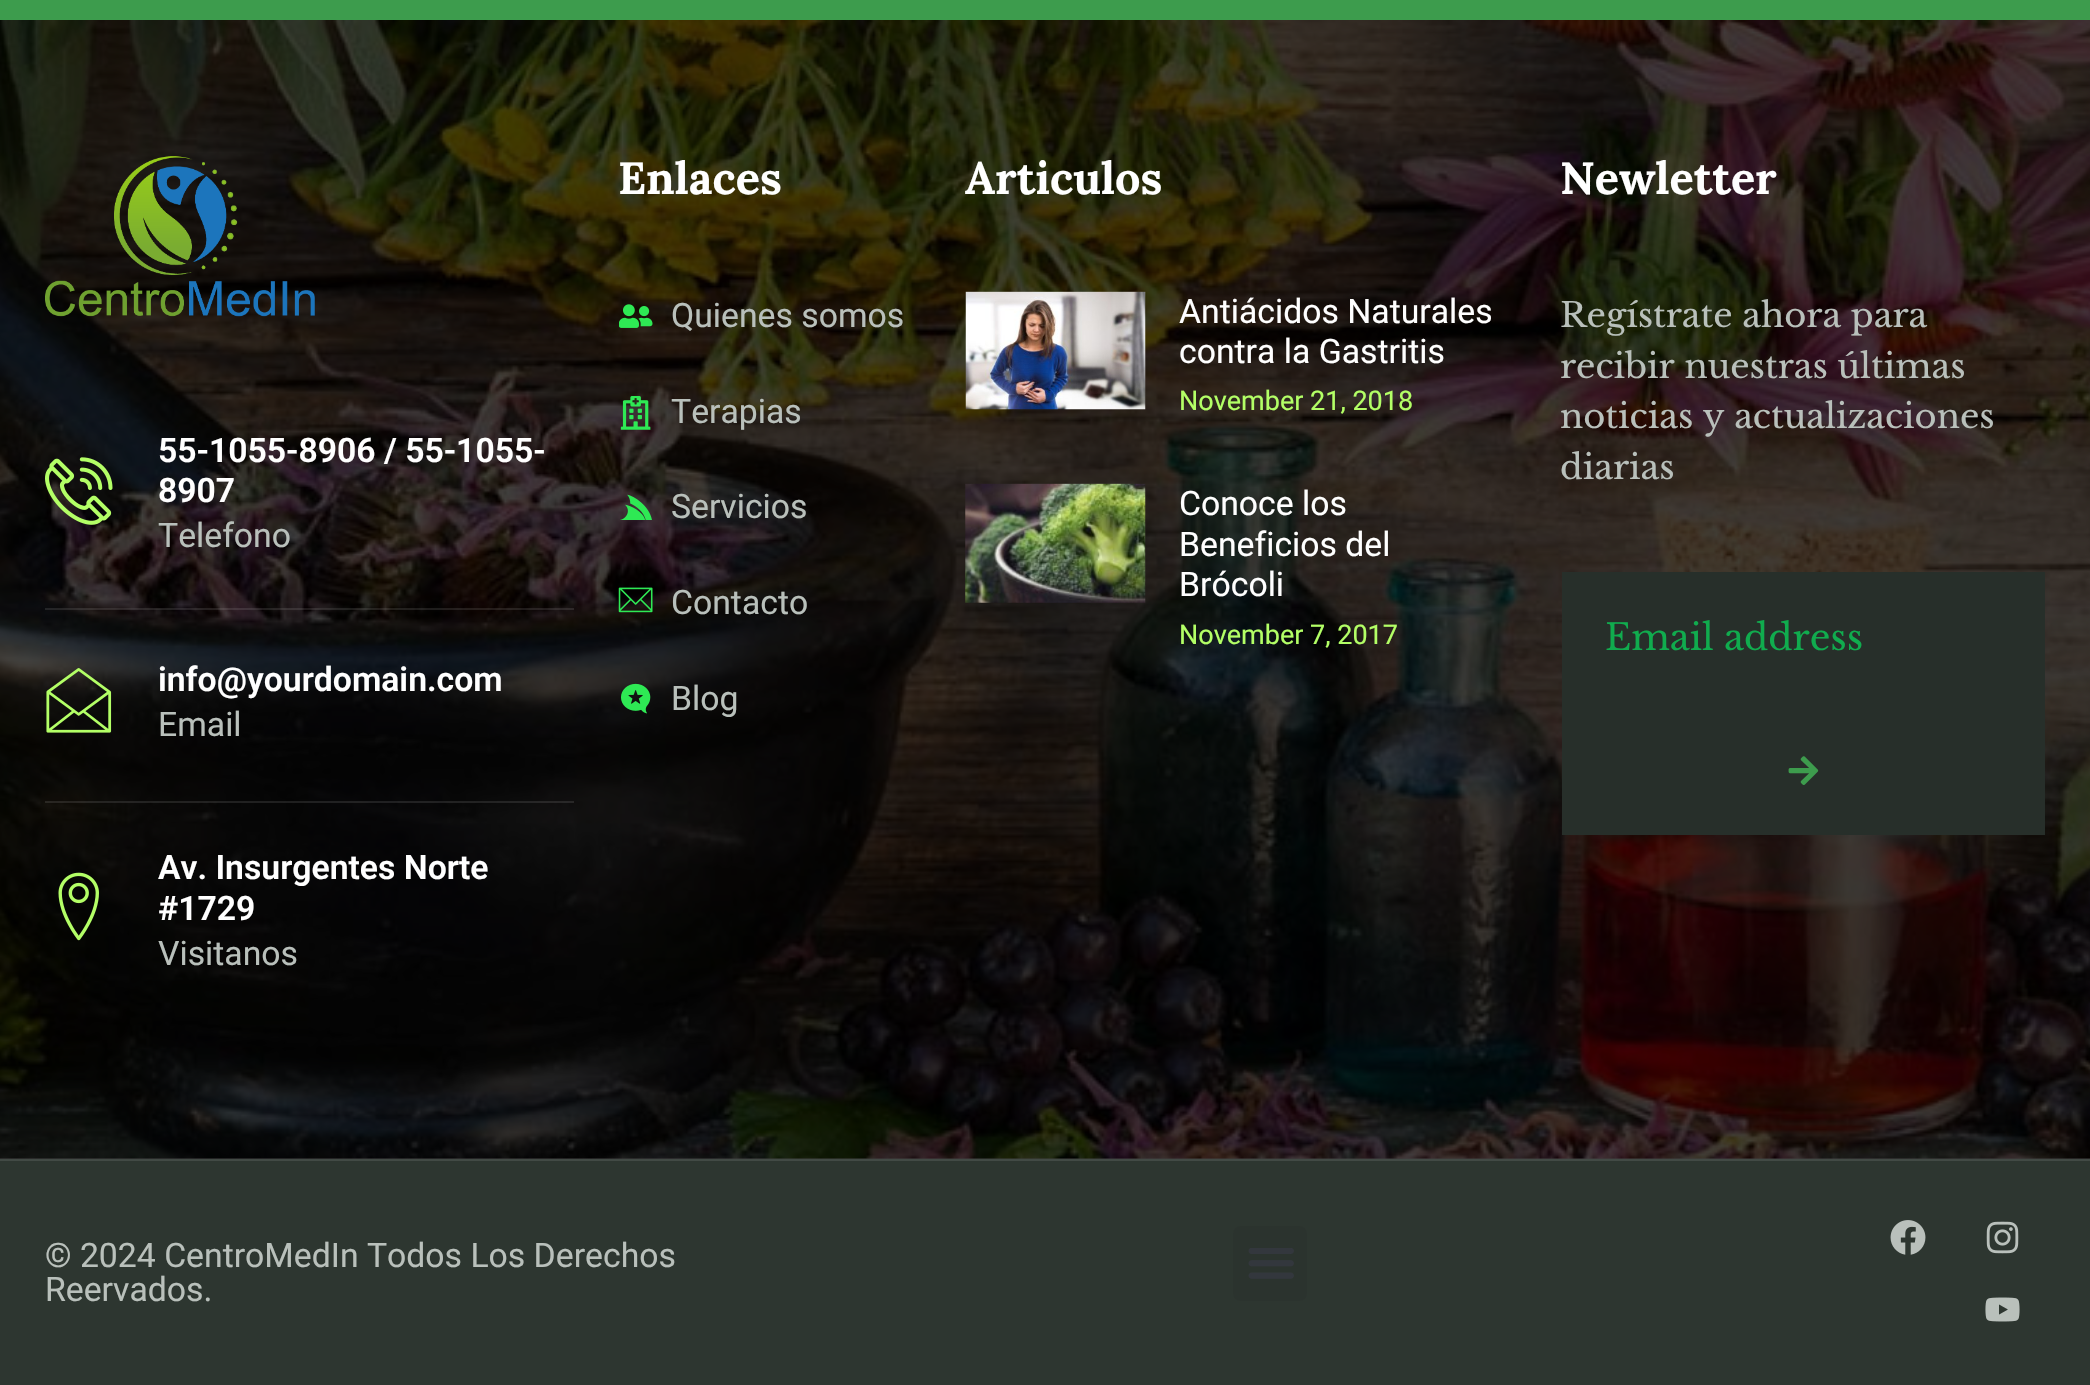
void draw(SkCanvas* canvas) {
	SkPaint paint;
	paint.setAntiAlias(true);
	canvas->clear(0xff404040);
	paint.setColor(0xff3d9c4d);
	canvas->drawRect(SkRect::MakeXYWH(0, 0, 2090, 20), paint);
	canvas->drawImageRect(SkImages::DeferredFromEncodedData(SkData::MakeFromFileName("img1.png")), SkRect::MakeXYWH(0, 20, 2090, 1139), SkSamplingOptions());
	canvas->drawImageRect(SkImages::DeferredFromEncodedData(SkData::MakeFromFileName("img2.png")), SkRect::MakeXYWH(45, 156, 270, 161), SkSamplingOptions());
	paint.setColor(0x1affffff);
	canvas->drawRect(SkRect::MakeXYWH(45, 608, 529, 2), paint);
	canvas->drawImageRect(SkImages::DeferredFromEncodedData(SkData::MakeFromFileName("img3.png")), SkRect::MakeXYWH(45, 457, 68, 68), SkSamplingOptions());
	SkFont f1(fontMgr->matchFamilyStyle("Roboto", SkFontStyle(600, SkFontStyle::kNormal_Width, SkFontStyle::kUpright_Slant)), 33.75);
	f1.setSubpixel(true);
	paint.setColor(0xffffffff);
	canvas->drawString("55-1055-8906 / 55-1055-", 158, 462, f1, paint);
	canvas->drawString("8907", 158, 502, f1, paint);
	SkFont f2(fontMgr->matchFamilyStyle("Roboto", SkFontStyle::Normal()), 33.75);
	f2.setSubpixel(true);
	paint.setColor(0xffb9c0bb);
	canvas->drawString("Telefono", 158, 547, f2, paint);
	paint.setColor(0x1affffff);
	canvas->drawRect(SkRect::MakeXYWH(45, 801, 529, 2), paint);
	canvas->drawImageRect(SkImages::DeferredFromEncodedData(SkData::MakeFromFileName("img4.png")), SkRect::MakeXYWH(46, 668, 66, 65), SkSamplingOptions());
	paint.setColor(0xffffffff);
	canvas->drawString("info@yourdomain.com", 158, 691, f1, paint);
	paint.setColor(0xffb9c0bb);
	canvas->drawString("Email", 158, 736, f2, paint);
	canvas->drawImageRect(SkImages::DeferredFromEncodedData(SkData::MakeFromFileName("img5.png")), SkRect::MakeXYWH(58, 872, 41, 69), SkSamplingOptions());
	paint.setColor(0xffffffff);
	canvas->drawString("Av. Insurgentes Norte", 158, 879, f1, paint);
	canvas->drawString("#1729", 158, 920, f1, paint);
	paint.setColor(0xffb9c0bb);
	canvas->drawString("Visitanos", 158, 965, f2, paint);
	SkFont f3(fontMgr->matchFamilyStyle("Lora", SkFontStyle::Bold()), 45);
	f3.setSubpixel(true);
	paint.setColor(0xffffffff);
	canvas->drawString("Enlaces", 618, 194, f3, paint);
	canvas->drawImageRect(SkImages::DeferredFromEncodedData(SkData::MakeFromFileName("img6.png")), SkRect::MakeXYWH(619, 304, 34, 24), SkSamplingOptions());
	paint.setColor(0xffb9c0bb);
	canvas->drawString("Quienes somos", 671, 327, f2, paint);
	canvas->drawImageRect(SkImages::DeferredFromEncodedData(SkData::MakeFromFileName("img7.png")), SkRect::MakeXYWH(620, 396, 31, 34), SkSamplingOptions());
	canvas->drawString("Terapias", 671, 423, f2, paint);
	canvas->drawImageRect(SkImages::DeferredFromEncodedData(SkData::MakeFromFileName("img8.png")), SkRect::MakeXYWH(620, 494, 32, 26), SkSamplingOptions());
	canvas->drawString("Servicios", 671, 518, f2, paint);
	canvas->drawImageRect(SkImages::DeferredFromEncodedData(SkData::MakeFromFileName("img9.png")), SkRect::MakeXYWH(618, 587, 35, 26), SkSamplingOptions());
	canvas->drawString("Contacto", 671, 614, f2, paint);
	canvas->drawImageRect(SkImages::DeferredFromEncodedData(SkData::MakeFromFileName("img10.png")), SkRect::MakeXYWH(621, 683, 30, 31), SkSamplingOptions());
	canvas->drawString("Blog", 671, 710, f2, paint);
	paint.setColor(0xffffffff);
	canvas->drawString("Articulos", 965, 194, f3, paint);
	canvas->drawImageRect(SkImages::DeferredFromEncodedData(SkData::MakeFromFileName("img11.png")), SkRect::MakeXYWH(965, 291, 181, 119), SkSamplingOptions());
	canvas->drawString("Antiácidos Naturales", 1179, 323, f2, paint);
	canvas->drawString("contra la Gastritis", 1179, 363, f2, paint);
	SkFont f4(fontMgr->matchFamilyStyle("Roboto", SkFontStyle::Normal()), 27);
	f4.setSubpixel(true);
	paint.setColor(0xffb3ff66);
	canvas->drawString("November 21, 2018", 1179, 410, f4, paint);
	canvas->drawImageRect(SkImages::DeferredFromEncodedData(SkData::MakeFromFileName("img12.png")), SkRect::MakeXYWH(965, 483, 181, 120), SkSamplingOptions());
	paint.setColor(0xffffffff);
	canvas->drawString("Conoce los", 1179, 515, f2, paint);
	canvas->drawString("Beneficios del", 1179, 556, f2, paint);
	canvas->drawString("Brócoli", 1179, 596, f2, paint);
	paint.setColor(0xffb3ff66);
	canvas->drawString("November 7, 2017", 1179, 644, f4, paint);
	paint.setColor(0xffffffff);
	canvas->drawString("Newletter", 1560, 194, f3, paint);
	SkFont f5(fontMgr->matchFamilyStyle("Libre Baskerville", SkFontStyle::Normal()), 33.75);
	f5.setSubpixel(true);
	paint.setColor(0xffb9c0bb);
	canvas->drawString("Regístrate ahora para", 1560, 327, f5, paint);
	canvas->drawString("recibir nuestras últimas", 1560, 378, f5, paint);
	canvas->drawString("noticias y actualizaciones", 1560, 428, f5, paint);
	canvas->drawString("diarias", 1560, 479, f5, paint);
	paint.setColor(0xff272f2a);
	canvas->drawRect(SkRect::MakeXYWH(1562, 572, 483, 263), paint);
	SkFont f6(fontMgr->matchFamilyStyle("Libre Baskerville", SkFontStyle::Normal()), 36);
	f6.setSubpixel(true);
	paint.setColor(0xff10ac4e);
	canvas->drawString("Email address", 1605, 650, f6, paint);
	canvas->drawImageRect(SkImages::DeferredFromEncodedData(SkData::MakeFromFileName("img13.png")), SkRect::MakeXYWH(1788, 756, 31, 29), SkSamplingOptions());
	paint.setColor(0xff2d3630);
	canvas->drawRect(SkRect::MakeXYWH(0, 1161, 2090, 224), paint);
	paint.setColor(0xff424a45);
	canvas->drawRect(SkRect::MakeXYWH(0, 1159, 2090, 2), paint);
	paint.setColor(0xffb9c0bb);
	canvas->drawString("© 2024 CentroMedIn Todos Los Derechos", 45, 1267, f2, paint);
	canvas->drawString("Reervados.", 45, 1301, f2, paint);
	paint.setColor(0xff2b332e);
	canvas->drawRoundRect(SkRect::MakeXYWH(1233, 1226, 74, 75), 7, 7, paint);
	canvas->drawImageRect(SkImages::DeferredFromEncodedData(SkData::MakeFromFileName("img14.png")), SkRect::MakeXYWH(1248, 1248, 46, 31), SkSamplingOptions());
	canvas->drawImageRect(SkImages::DeferredFromEncodedData(SkData::MakeFromFileName("img15.png")), SkRect::MakeXYWH(1890, 1220, 36, 35), SkSamplingOptions());
	canvas->drawImageRect(SkImages::DeferredFromEncodedData(SkData::MakeFromFileName("img16.png")), SkRect::MakeXYWH(1986, 1221, 33, 33), SkSamplingOptions());
	canvas->drawImageRect(SkImages::DeferredFromEncodedData(SkData::MakeFromFileName("img17.png")), SkRect::MakeXYWH(1985, 1297, 35, 25), SkSamplingOptions());
}
